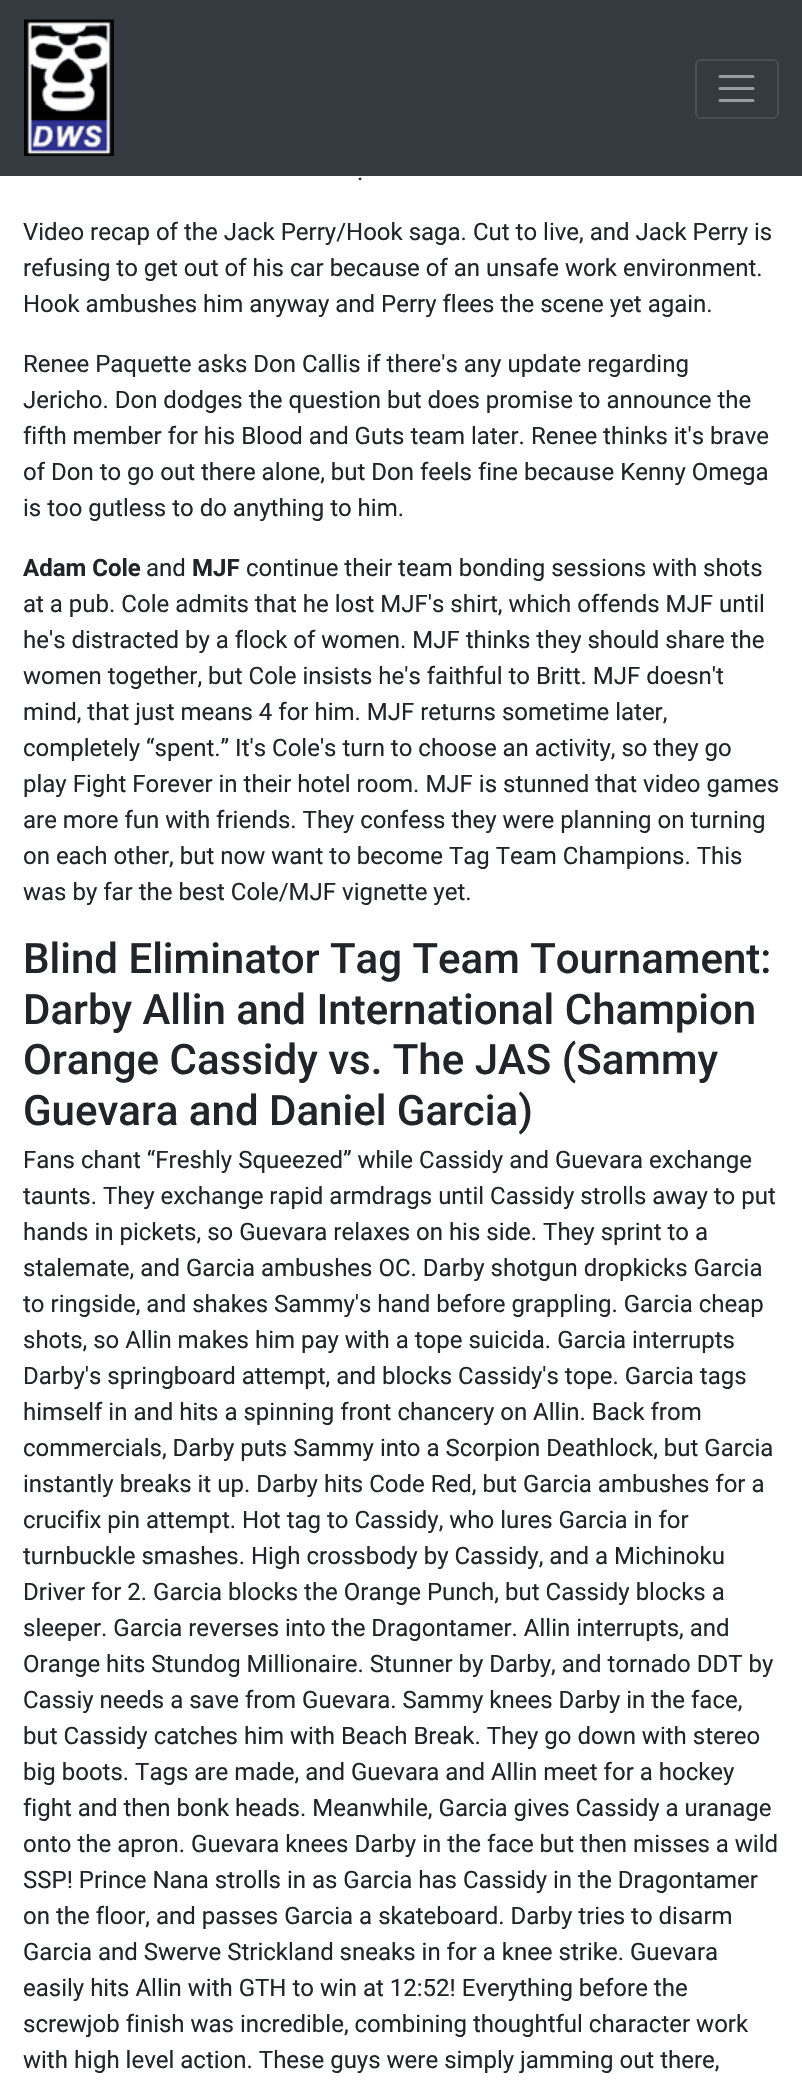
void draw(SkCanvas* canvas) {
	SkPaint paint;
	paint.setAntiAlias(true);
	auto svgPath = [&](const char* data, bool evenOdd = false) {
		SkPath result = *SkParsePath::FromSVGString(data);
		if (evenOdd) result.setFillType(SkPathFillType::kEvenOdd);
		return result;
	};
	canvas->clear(0xffffffff);
	paint.setColor(0xff343a40);
	canvas->drawRect(SkRect::MakeXYWH(0, 0, 802, 176), paint);
	canvas->drawImageRect(SkImages::DeferredFromEncodedData(SkData::MakeFromFileName("img1.png")), SkRect::MakeXYWH(24, 19, 90, 137), SkSamplingOptions());
	paint.setStroke(true);
	paint.setStrokeWidth(2);
	paint.setColor(0xff484e53);
	canvas->drawRoundRect(SkRect::MakeXYWH(696, 60, 82, 58), 5, 5, paint);
	paint.setStrokeWidth(3);
	paint.setStrokeCap(SkPaint::kRound_Cap);
	paint.setColor(0xff9a9da0);
	canvas->drawPath(svgPath("M720 76.5H753M720 88.5H753M720 100.5H753"), paint);
	SkFont f1(fontMgr->matchFamilyStyle("Roboto", SkFontStyle::Normal()), 24);
	f1.setSubpixel(true);
	paint.setStroke(false);
	paint.setColor(0xff212529);
	canvas->drawString(".", 357, 180, f1, paint);
	canvas->drawString("Video recap of the Jack Perry/Hook saga. Cut to live, and Jack Perry is", 23, 240, f1, paint);
	canvas->drawString("refusing to get out of his car because of an unsafe work environment.", 23, 276, f1, paint);
	canvas->drawString("Hook ambushes him anyway and Perry flees the scene yet again.", 23, 312, f1, paint);
	canvas->drawString("Renee Paquette asks Don Callis if there's any update regarding", 23, 372, f1, paint);
	canvas->drawString("Jericho. Don dodges the question but does promise to announce the", 23, 408, f1, paint);
	canvas->drawString("fifth member for his Blood and Guts team later. Renee thinks it's brave", 23, 444, f1, paint);
	canvas->drawString("of Don to go out there alone, but Don feels fine because Kenny Omega", 23, 480, f1, paint);
	canvas->drawString("is too gutless to do anything to him.", 23, 516, f1, paint);
	SkFont f2(fontMgr->matchFamilyStyle("Roboto", SkFontStyle::Bold()), 24);
	f2.setSubpixel(true);
	canvas->drawString("Adam Cole", 23, 576, f2, paint);
	canvas->drawString("and", 146, 576, f1, paint);
	canvas->drawString("MJF", 192, 576, f2, paint);
	canvas->drawString("continue their team bonding sessions with shots", 246, 576, f1, paint);
	canvas->drawString("at a pub. Cole admits that he lost MJF's shirt, which offends MJF until", 23, 612, f1, paint);
	canvas->drawString("he's distracted by a flock of women. MJF thinks they should share the", 23, 648, f1, paint);
	canvas->drawString("women together, but Cole insists he's faithful to Britt. MJF doesn't", 23, 684, f1, paint);
	canvas->drawString("mind, that just means 4 for him. MJF returns sometime later,", 23, 720, f1, paint);
	canvas->drawString("completely “spent.” It's Cole's turn to choose an activity, so they go", 23, 756, f1, paint);
	canvas->drawString("play Fight Forever in their hotel room. MJF is stunned that video games", 23, 792, f1, paint);
	canvas->drawString("are more fun with friends. They confess they were planning on turning", 23, 828, f1, paint);
	canvas->drawString("on each other, but now want to become Tag Team Champions. This", 23, 864, f1, paint);
	canvas->drawString("was by far the best Cole/MJF vignette yet.", 23, 900, f1, paint);
	SkFont f3(fontMgr->matchFamilyStyle("Roboto", SkFontStyle(500, SkFontStyle::kNormal_Width, SkFontStyle::kUpright_Slant)), 42);
	f3.setSubpixel(true);
	canvas->drawString("Blind Eliminator Tag Team Tournament:", 23, 973, f3, paint);
	canvas->drawString("Darby Allin and International Champion", 23, 1024, f3, paint);
	canvas->drawString("Orange Cassidy vs. The JAS (Sammy", 23, 1074, f3, paint);
	canvas->drawString("Guevara and Daniel Garcia)", 23, 1125, f3, paint);
	canvas->drawString("Fans chant “Freshly Squeezed” while Cassidy and Guevara exchange", 23, 1168, f1, paint);
	canvas->drawString("taunts. They exchange rapid armdrags until Cassidy strolls away to put", 23, 1204, f1, paint);
	canvas->drawString("hands in pickets, so Guevara relaxes on his side. They sprint to a", 23, 1240, f1, paint);
	canvas->drawString("stalemate, and Garcia ambushes OC. Darby shotgun dropkicks Garcia", 23, 1276, f1, paint);
	canvas->drawString("to ringside, and shakes Sammy's hand before grappling. Garcia cheap", 23, 1312, f1, paint);
	canvas->drawString("shots, so Allin makes him pay with a tope suicida. Garcia interrupts", 23, 1348, f1, paint);
	canvas->drawString("Darby's springboard attempt, and blocks Cassidy's tope. Garcia tags", 23, 1384, f1, paint);
	canvas->drawString("himself in and hits a spinning front chancery on Allin. Back from", 23, 1420, f1, paint);
	canvas->drawString("commercials, Darby puts Sammy into a Scorpion Deathlock, but Garcia", 23, 1456, f1, paint);
	canvas->drawString("instantly breaks it up. Darby hits Code Red, but Garcia ambushes for a", 23, 1492, f1, paint);
	canvas->drawString("crucifix pin attempt. Hot tag to Cassidy, who lures Garcia in for", 23, 1528, f1, paint);
	canvas->drawString("turnbuckle smashes. High crossbody by Cassidy, and a Michinoku", 23, 1564, f1, paint);
	canvas->drawString("Driver for 2. Garcia blocks the Orange Punch, but Cassidy blocks a", 23, 1600, f1, paint);
	canvas->drawString("sleeper. Garcia reverses into the Dragontamer. Allin interrupts, and", 23, 1636, f1, paint);
	canvas->drawString("Orange hits Stundog Millionaire. Stunner by Darby, and tornado DDT by", 23, 1672, f1, paint);
	canvas->drawString("Cassiy needs a save from Guevara. Sammy knees Darby in the face,", 23, 1708, f1, paint);
	canvas->drawString("but Cassidy catches him with Beach Break. They go down with stereo", 23, 1744, f1, paint);
	canvas->drawString("big boots. Tags are made, and Guevara and Allin meet for a hockey", 23, 1780, f1, paint);
	canvas->drawString("fight and then bonk heads. Meanwhile, Garcia gives Cassidy a uranage", 23, 1816, f1, paint);
	canvas->drawString("onto the apron. Guevara knees Darby in the face but then misses a wild", 23, 1852, f1, paint);
	canvas->drawString("SSP! Prince Nana strolls in as Garcia has Cassidy in the Dragontamer", 23, 1888, f1, paint);
	canvas->drawString("on the floor, and passes Garcia a skateboard. Darby tries to disarm", 23, 1924, f1, paint);
	canvas->drawString("Garcia and Swerve Strickland sneaks in for a knee strike. Guevara", 23, 1960, f1, paint);
	canvas->drawString("easily hits Allin with GTH to win at 12:52! Everything before the", 23, 1996, f1, paint);
	canvas->drawString("screwjob finish was incredible, combining thoughtful character work", 23, 2032, f1, paint);
	canvas->drawString("with high level action. These guys were simply jamming out there,", 23, 2068, f1, paint);
}
